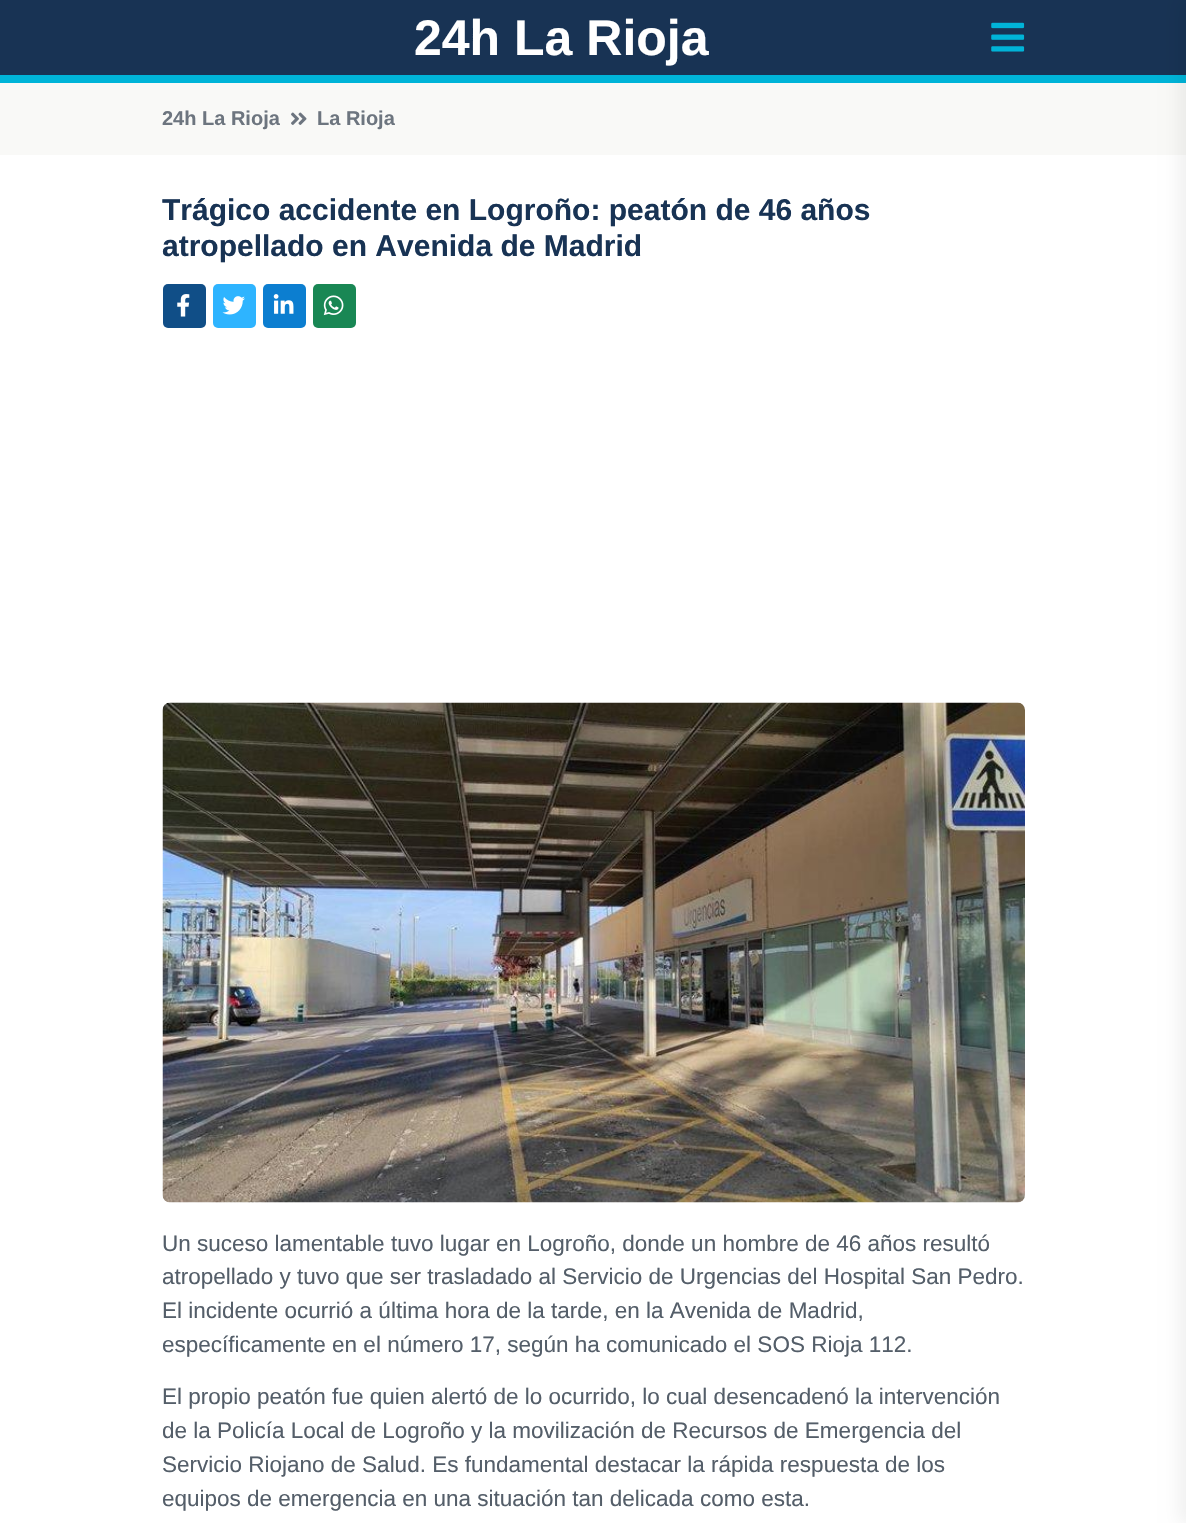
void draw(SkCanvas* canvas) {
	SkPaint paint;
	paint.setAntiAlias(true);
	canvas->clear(0xffffffff);
	paint.setColor(0xff183354);
	canvas->drawRect(SkRect::MakeXYWH(0, 0, 1186, 75), paint);
	paint.setColor(0xff00b4d8);
	canvas->drawRect(SkRect::MakeXYWH(0, 75, 1186, 8), paint);
	SkFont f1(fontMgr->matchFamilyStyle("Liberation Sans", SkFontStyle::Bold()), 50);
	f1.setSubpixel(true);
	paint.setColor(0xffffffff);
	canvas->drawString("24h La Rioja", 414, 55, f1, paint);
	canvas->drawImageRect(SkImages::DeferredFromEncodedData(SkData::MakeFromFileName("img1.png")), SkRect::MakeXYWH(991, 22, 34, 30), SkSamplingOptions());
	paint.setColor(0xfff9f9f7);
	canvas->drawRect(SkRect::MakeXYWH(0, 83, 1186, 72), paint);
	paint.setColor(0x0f000000);
	paint.setMaskFilter(SkMaskFilter::MakeBlur(kNormal_SkBlurStyle, 9));
	canvas->drawRect(SkRect::MakeXYWH(1179, 0, 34, 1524), paint);
	paint.setMaskFilter(nullptr);
	SkFont f2(fontMgr->matchFamilyStyle("Liberation Sans", SkFontStyle::Bold()), 20);
	f2.setSubpixel(true);
	paint.setColor(0xff6d757f);
	canvas->drawString("24h La Rioja", 162, 125, f2, paint);
	canvas->drawImageRect(SkImages::DeferredFromEncodedData(SkData::MakeFromFileName("img2.png")), SkRect::MakeXYWH(291, 112, 16, 13), SkSamplingOptions());
	canvas->drawString("La Rioja", 317, 125, f2, paint);
	SkFont f3(fontMgr->matchFamilyStyle("Liberation Sans", SkFontStyle::Bold()), 30);
	f3.setSubpixel(true);
	paint.setColor(0xff183354);
	canvas->drawString("Trágico accidente en Logroño: peatón de 46 años", 162, 220, f3, paint);
	canvas->drawString("atropellado en Avenida de Madrid", 162, 256, f3, paint);
	paint.setColor(0xff104e87);
	canvas->drawRoundRect(SkRect::MakeXYWH(163, 284, 43, 44), 5, 5, paint);
	canvas->drawImageRect(SkImages::DeferredFromEncodedData(SkData::MakeFromFileName("img3.png")), SkRect::MakeXYWH(177, 294, 13, 23), SkSamplingOptions());
	paint.setColor(0xff2eb4ff);
	canvas->drawRoundRect(SkRect::MakeXYWH(213, 284, 43, 44), 5, 5, paint);
	canvas->drawImageRect(SkImages::DeferredFromEncodedData(SkData::MakeFromFileName("img4.png")), SkRect::MakeXYWH(222, 296, 23, 19), SkSamplingOptions());
	paint.setColor(0xff0c7ed0);
	canvas->drawRoundRect(SkRect::MakeXYWH(263, 284, 43, 44), 5, 5, paint);
	canvas->drawImageRect(SkImages::DeferredFromEncodedData(SkData::MakeFromFileName("img5.png")), SkRect::MakeXYWH(273, 294, 21, 20), SkSamplingOptions());
	paint.setColor(0xff198754);
	canvas->drawRoundRect(SkRect::MakeXYWH(313, 284, 43, 44), 5, 5, paint);
	canvas->drawImageRect(SkImages::DeferredFromEncodedData(SkData::MakeFromFileName("img6.png")), SkRect::MakeXYWH(323, 295, 21, 21), SkSamplingOptions());
	canvas->drawImageRect(SkImages::DeferredFromEncodedData(SkData::MakeFromFileName("img7.png")), SkRect::MakeXYWH(162, 702, 863, 501), SkSamplingOptions());
	SkFont f4(fontMgr->matchFamilyStyle("Liberation Sans", SkFontStyle::Normal()), 22.5);
	f4.setSubpixel(true);
	paint.setColor(0xff545e69);
	canvas->drawString("Un suceso lamentable tuvo lugar en Logroño, donde un hombre de 46 años resultó", 162, 1251, f4, paint);
	canvas->drawString("atropellado y tuvo que ser trasladado al Servicio de Urgencias del Hospital San Pedro.", 162, 1284, f4, paint);
	canvas->drawString("El incidente ocurrió a última hora de la tarde, en la Avenida de Madrid,", 162, 1318, f4, paint);
	canvas->drawString("específicamente en el número 17, según ha comunicado el SOS Rioja 112.", 162, 1352, f4, paint);
	canvas->drawString("El propio peatón fue quien alertó de lo ocurrido, lo cual desencadenó la intervención", 162, 1404, f4, paint);
	canvas->drawString("de la Policía Local de Logroño y la movilización de Recursos de Emergencia del", 162, 1438, f4, paint);
	canvas->drawString("Servicio Riojano de Salud. Es fundamental destacar la rápida respuesta de los", 162, 1472, f4, paint);
	canvas->drawString("equipos de emergencia en una situación tan delicada como esta.", 162, 1506, f4, paint);
}
